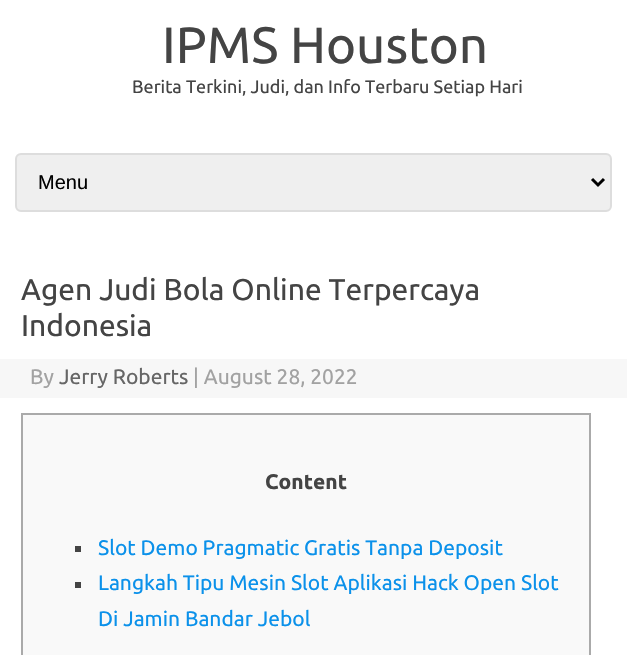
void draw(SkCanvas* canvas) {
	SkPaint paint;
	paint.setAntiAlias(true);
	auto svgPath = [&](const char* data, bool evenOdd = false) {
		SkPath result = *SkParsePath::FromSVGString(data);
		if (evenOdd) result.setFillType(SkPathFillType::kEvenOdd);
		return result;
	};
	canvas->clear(0xffffffff);
	SkFont f1(fontMgr->matchFamilyStyle("Ubuntu", SkFontStyle::Normal()), 51);
	f1.setSubpixel(true);
	paint.setColor(0xff444444);
	canvas->drawString("IPMS Houston", 162, 63, f1, paint);
	SkFont f2(fontMgr->matchFamilyStyle("Ubuntu", SkFontStyle::Normal()), 18);
	f2.setSubpixel(true);
	canvas->drawString("Berita Terkini, Judi, dan Info Terbaru Setiap Hari", 132, 93, f2, paint);
	paint.setColor(0xffefefef);
	canvas->drawRoundRect(SkRect::MakeXYWH(16, 154, 595, 57), 5, 5, paint);
	paint.setStroke(true);
	paint.setStrokeWidth(2);
	paint.setColor(0xffdddddd);
	canvas->drawRoundRect(SkRect::MakeXYWH(16, 154, 595, 57), 5, 5, paint);
	paint.setStrokeWidth(3);
	paint.setColor(0xff000000);
	canvas->drawPath(svgPath("M592 179L598 185L604 179"), paint);
	SkFont f3(fontMgr->matchFamilyStyle("Liberation Sans", SkFontStyle::Normal()), 20);
	f3.setSubpixel(true);
	paint.setStroke(false);
	canvas->drawString("Menu", 38, 189, f3, paint);
	SkFont f4(fontMgr->matchFamilyStyle("Ubuntu", SkFontStyle::Normal()), 30);
	f4.setSubpixel(true);
	paint.setColor(0xff444444);
	canvas->drawString("Agen Judi Bola Online Terpercaya", 21, 300, f4, paint);
	canvas->drawString("Indonesia", 21, 336, f4, paint);
	paint.setColor(0xfff7f7f7);
	canvas->drawRect(SkRect::MakeXYWH(0, 359, 627, 39), paint);
	SkFont f5(fontMgr->matchFamilyStyle("Ubuntu", SkFontStyle::Normal()), 21);
	f5.setSubpixel(true);
	paint.setColor(0xffa2a2a2);
	canvas->drawString("By", 30, 384, f5, paint);
	paint.setColor(0xff666666);
	canvas->drawString("Jerry Roberts", 59, 384, f5, paint);
	paint.setColor(0xffa2a2a2);
	canvas->drawString("| August 28, 2022", 193, 384, f5, paint);
	paint.setColor(0xfff9f9f9);
	canvas->drawRect(SkRect::MakeXYWH(22, 414, 568, 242), paint);
	paint.setStroke(true);
	paint.setStrokeWidth(2);
	paint.setColor(0xffaaaaaa);
	canvas->drawRect(SkRect::MakeXYWH(22, 414, 568, 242), paint);
	SkFont f6(fontMgr->matchFamilyStyle("Ubuntu", SkFontStyle::Bold()), 21);
	f6.setSubpixel(true);
	paint.setStroke(false);
	paint.setColor(0xff444444);
	canvas->drawString("Content", 265, 489, f6, paint);
	canvas->drawRect(SkRect::MakeXYWH(75, 546, 6, 6), paint);
	paint.setColor(0xff0b91ea);
	canvas->drawString("Slot Demo Pragmatic Gratis Tanpa Deposit", 98, 555, f5, paint);
	paint.setColor(0xff444444);
	canvas->drawRect(SkRect::MakeXYWH(75, 582, 6, 6), paint);
	paint.setColor(0xff0b91ea);
	canvas->drawString("Langkah Tipu Mesin Slot Aplikasi Hack Open Slot", 98, 590, f5, paint);
	canvas->drawString("Di Jamin Bandar Jebol", 98, 626, f5, paint);
}
